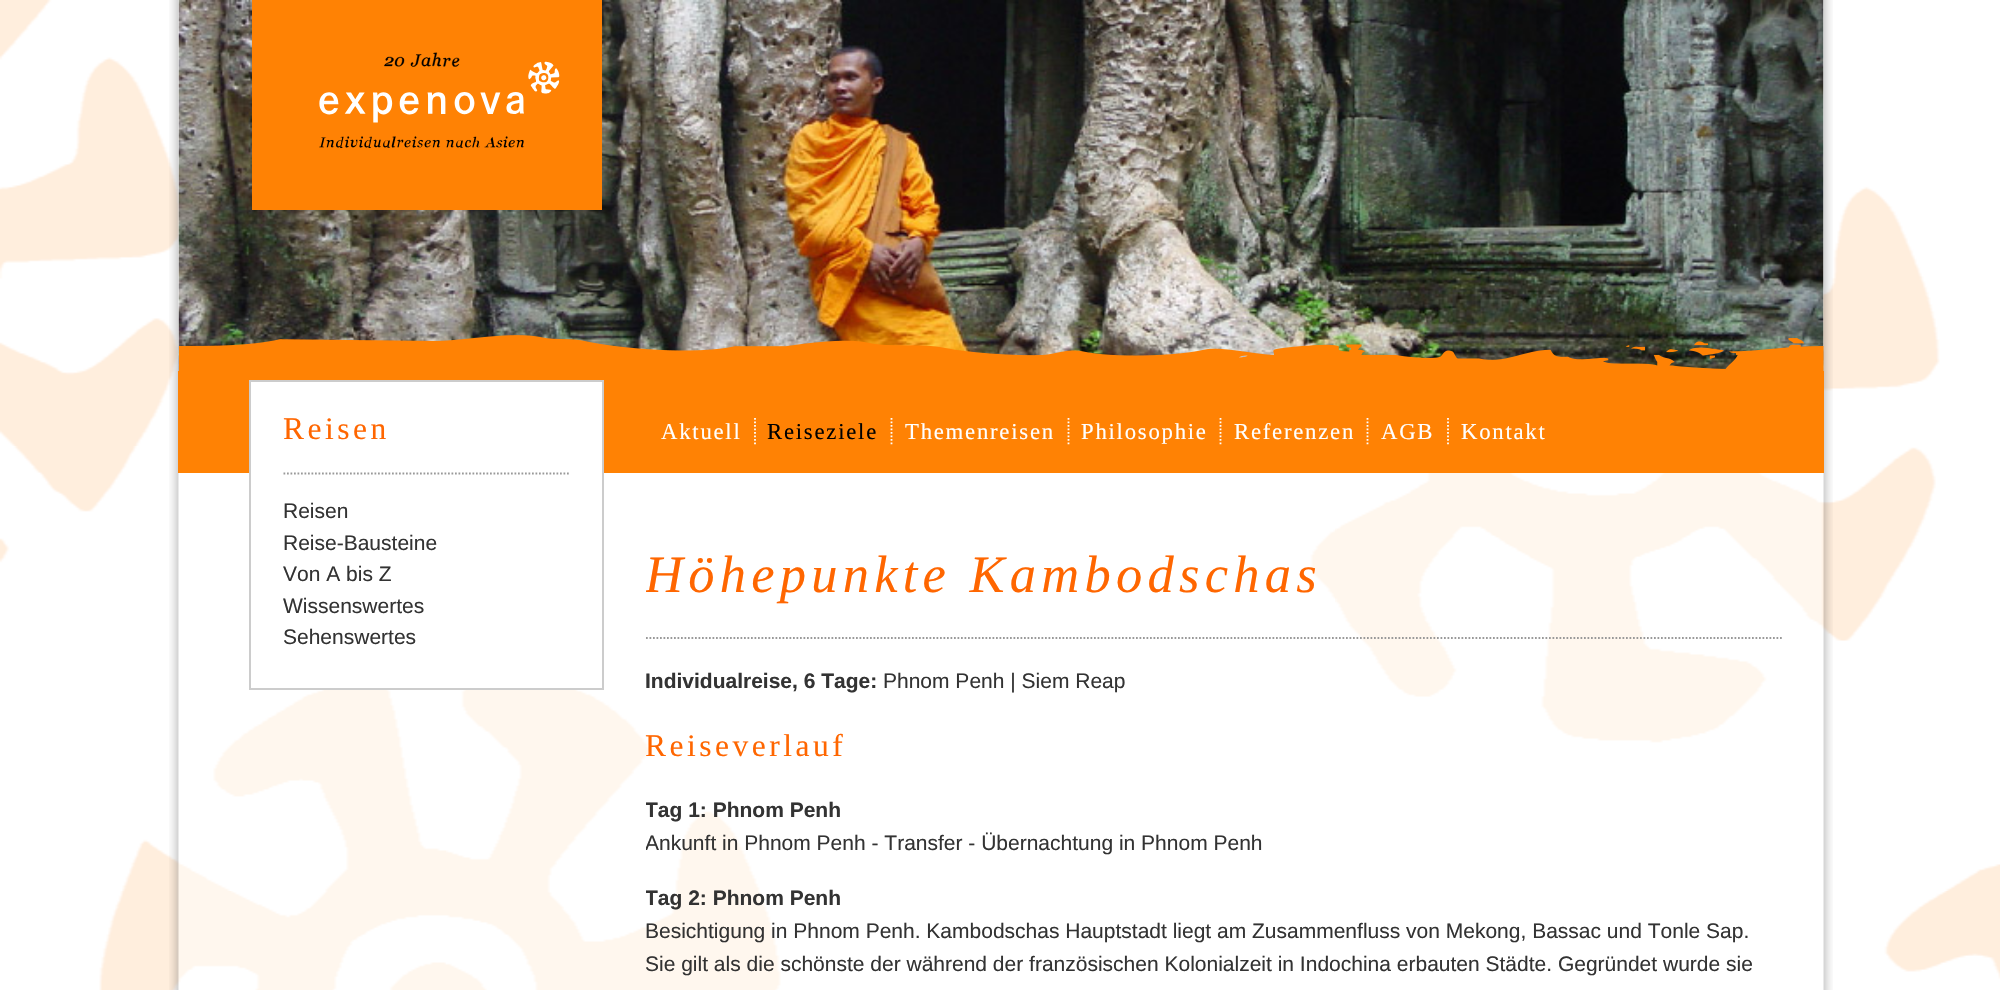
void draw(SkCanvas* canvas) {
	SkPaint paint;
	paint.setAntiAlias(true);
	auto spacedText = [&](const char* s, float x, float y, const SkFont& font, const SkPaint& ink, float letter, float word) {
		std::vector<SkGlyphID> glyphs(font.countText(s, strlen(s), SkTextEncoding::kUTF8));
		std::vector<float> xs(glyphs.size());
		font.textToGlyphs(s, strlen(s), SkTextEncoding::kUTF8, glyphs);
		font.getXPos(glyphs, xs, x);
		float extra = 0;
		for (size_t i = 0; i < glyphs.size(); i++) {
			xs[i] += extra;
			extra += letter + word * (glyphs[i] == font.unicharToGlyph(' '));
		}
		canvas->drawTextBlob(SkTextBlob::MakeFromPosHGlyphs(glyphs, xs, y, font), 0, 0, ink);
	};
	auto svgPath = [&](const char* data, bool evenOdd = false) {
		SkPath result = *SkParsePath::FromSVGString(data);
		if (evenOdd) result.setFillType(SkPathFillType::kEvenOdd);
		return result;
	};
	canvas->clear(0xffffffff);
	canvas->drawImageRect(SkImages::DeferredFromEncodedData(SkData::MakeFromFileName("img1.png")), SkRect::MakeXYWH(0, 0, 2000, 990), SkSamplingOptions());
	canvas->drawImageRect(SkImages::DeferredFromEncodedData(SkData::MakeFromFileName("img2.png")), SkRect::MakeXYWH(169, 0, 1664, 990), SkSamplingOptions());
	canvas->drawImageRect(SkImages::DeferredFromEncodedData(SkData::MakeFromFileName("img3.png")), SkRect::MakeXYWH(178, 0, 1646, 371), SkSamplingOptions());
	canvas->drawImageRect(SkImages::DeferredFromEncodedData(SkData::MakeFromFileName("img4.png")), SkRect::MakeXYWH(252, 0, 350, 210), SkSamplingOptions());
	canvas->drawImageRect(SkImages::DeferredFromEncodedData(SkData::MakeFromFileName("img5.png")), SkRect::MakeXYWH(179, 335, 1645, 36), SkSamplingOptions());
	paint.setColor(0xffff8204);
	canvas->drawRect(SkRect::MakeXYWH(178, 371, 1646, 102), paint);
	paint.setColor(0xffffffff);
	canvas->drawRect(SkRect::MakeXYWH(250, 381, 353, 308), paint);
	paint.setStroke(true);
	paint.setStrokeWidth(2);
	paint.setColor(0xffcccccc);
	canvas->drawRect(SkRect::MakeXYWH(250, 381, 353, 308), paint);
	paint.setStrokeWidth(1.8);
	paint.setColor(0xff999999);
	paint.setPathEffect(SkDashPathEffect::Make({{1.75f, 1.75f}}, 0));
	canvas->drawPath(svgPath("M283.5 473.5H569"), paint);
	paint.setPathEffect(nullptr);
	SkFont f1(fontMgr->matchFamilyStyle("Liberation Serif", SkFontStyle::Normal()), 31.5);
	f1.setSubpixel(true);
	paint.setStroke(false);
	paint.setColor(0xffff6600);
	spacedText("Reisen", 283, 439, f1, paint, 3.5, 0);
	SkFont f2(fontMgr->matchFamilyStyle("Liberation Sans", SkFontStyle::Normal()), 21);
	f2.setSubpixel(true);
	paint.setColor(0xff333333);
	canvas->drawString("Reisen", 283, 518, f2, paint);
	canvas->drawString("Reise-Bausteine", 283, 550, f2, paint);
	canvas->drawString("Von A bis Z", 283, 581, f2, paint);
	canvas->drawString("Wissenswertes", 283, 613, f2, paint);
	canvas->drawString("Sehenswertes", 283, 644, f2, paint);
	paint.setStroke(true);
	paint.setColor(0xff999999);
	paint.setPathEffect(SkDashPathEffect::Make({{1.75f, 1.75f}}, 0));
	canvas->drawPath(svgPath("M646 638H1783"), paint);
	paint.setPathEffect(nullptr);
	canvas->save();
	canvas->clipRect(SkRect::MakeXYWH(646, 508, 1137, 374));
	SkFont f3(fontMgr->matchFamilyStyle("Liberation Serif", SkFontStyle::Italic()), 52.5);
	f3.setSubpixel(true);
	paint.setStroke(false);
	paint.setColor(0xffff6600);
	spacedText("Höhepunkte Kambodschas", 645, 592, f3, paint, 5.25, 0);
	canvas->restore();
	SkFont f4(fontMgr->matchFamilyStyle("Liberation Sans", SkFontStyle::Bold()), 21);
	f4.setSubpixel(true);
	paint.setColor(0xff333333);
	canvas->drawString("Individualreise, 6 Tage:", 645, 688, f4, paint);
	canvas->drawString("Phnom Penh | Siem Reap", 883, 688, f2, paint);
	paint.setColor(0xffff6600);
	spacedText("Reiseverlauf", 645, 756, f1, paint, 3.5, 0);
	canvas->save();
	canvas->clipRect(SkRect::MakeXYWH(646, 508, 1137, 374));
	paint.setColor(0xff333333);
	canvas->drawString("Tag 1: Phnom Penh", 645, 817, f4, paint);
	canvas->drawString("Ankunft in Phnom Penh - Transfer - Übernachtung in Phnom Penh", 645, 850, f2, paint);
	canvas->restore();
	canvas->save();
	canvas->clipRect(SkRect::MakeXYWH(646, 882, 1137, 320));
	canvas->drawString("Tag 2: Phnom Penh", 645, 905, f4, paint);
	canvas->restore();
	canvas->drawString("Besichtigung in Phnom Penh. Kambodschas Hauptstadt liegt am Zusammenfluss von Mekong, Bassac und Tonle Sap.", 645, 938, f2, paint);
	canvas->drawString("Sie gilt als die schönste der während der französischen Kolonialzeit in Indochina erbauten Städte. Gegründet wurde sie", 645, 971, f2, paint);
	SkFont f5(fontMgr->matchFamilyStyle("Liberation Serif", SkFontStyle::Normal()), 22.75);
	f5.setSubpixel(true);
	paint.setColor(0xffffffff);
	spacedText("Aktuell", 661, 439, f5, paint, 1.75, 0);
	paint.setStroke(true);
	paint.setPathEffect(SkDashPathEffect::Make({{1.75f, 1.75f}}, 0));
	canvas->drawPath(svgPath("M755 418V446"), paint);
	paint.setPathEffect(nullptr);
	paint.setStroke(false);
	paint.setColor(0xff000000);
	spacedText("Reiseziele", 767, 439, f5, paint, 1.75, 0);
	paint.setStroke(true);
	paint.setColor(0xffffffff);
	paint.setPathEffect(SkDashPathEffect::Make({{1.75f, 1.75f}}, 0));
	canvas->drawPath(svgPath("M891.5 418V446"), paint);
	paint.setPathEffect(nullptr);
	paint.setStroke(false);
	spacedText("Themenreisen", 905, 439, f5, paint, 1.75, 0);
	paint.setStroke(true);
	paint.setPathEffect(SkDashPathEffect::Make({{1.75f, 1.75f}}, 0));
	canvas->drawPath(svgPath("M1068.5 418V446"), paint);
	paint.setPathEffect(nullptr);
	paint.setStroke(false);
	spacedText("Philosophie", 1081, 439, f5, paint, 1.75, 0);
	paint.setStroke(true);
	paint.setPathEffect(SkDashPathEffect::Make({{1.75f, 1.75f}}, 0));
	canvas->drawPath(svgPath("M1220.5 418V446"), paint);
	paint.setPathEffect(nullptr);
	paint.setStroke(false);
	spacedText("Referenzen", 1234, 439, f5, paint, 1.75, 0);
	paint.setStroke(true);
	paint.setPathEffect(SkDashPathEffect::Make({{1.75f, 1.75f}}, 0));
	canvas->drawPath(svgPath("M1367.5 418V446"), paint);
	paint.setPathEffect(nullptr);
	paint.setStroke(false);
	spacedText("AGB", 1381, 439, f5, paint, 1.75, 0);
	paint.setStroke(true);
	paint.setPathEffect(SkDashPathEffect::Make({{1.75f, 1.75f}}, 0));
	canvas->drawPath(svgPath("M1448 418V446"), paint);
	paint.setPathEffect(nullptr);
	paint.setStroke(false);
	spacedText("Kontakt", 1461, 439, f5, paint, 1.75, 0);
}
